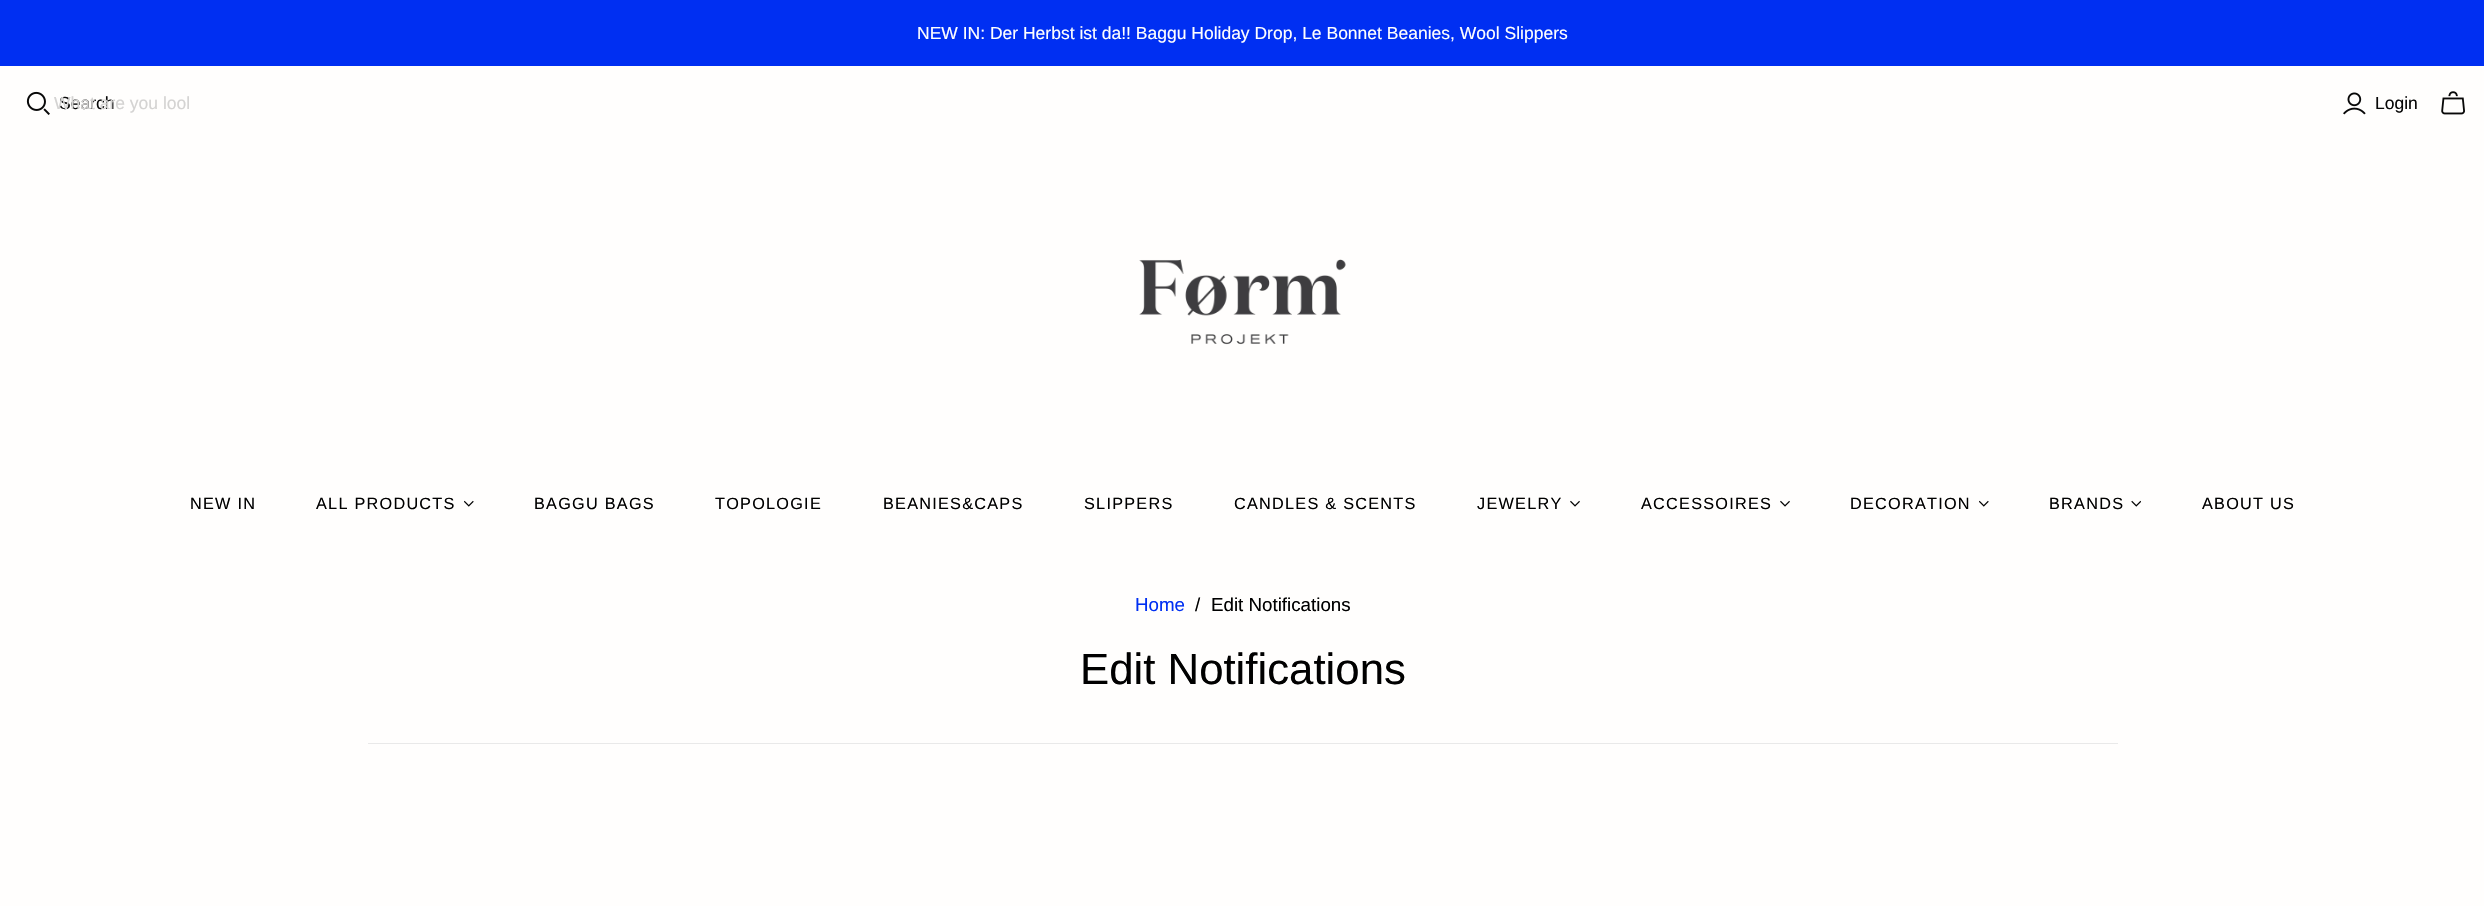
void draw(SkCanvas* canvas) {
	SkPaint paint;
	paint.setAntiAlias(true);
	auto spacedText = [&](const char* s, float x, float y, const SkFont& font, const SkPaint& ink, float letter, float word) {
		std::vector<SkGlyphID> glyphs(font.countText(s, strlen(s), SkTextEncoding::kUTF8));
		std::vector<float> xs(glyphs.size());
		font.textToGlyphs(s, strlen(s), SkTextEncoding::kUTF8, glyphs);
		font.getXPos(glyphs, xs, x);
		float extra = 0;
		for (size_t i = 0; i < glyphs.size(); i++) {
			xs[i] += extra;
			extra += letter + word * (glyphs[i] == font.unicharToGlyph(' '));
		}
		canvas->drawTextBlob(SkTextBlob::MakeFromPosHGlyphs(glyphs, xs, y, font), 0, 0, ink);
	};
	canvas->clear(0xfffffefd);
	paint.setColor(0xff002ff2);
	canvas->drawRect(SkRect::MakeXYWH(0, 0, 2484, 66), paint);
	SkFont f1(fontMgr->matchFamilyStyle("Liberation Sans", SkFontStyle::Normal()), 17.5);
	f1.setSubpixel(true);
	paint.setColor(0xffffffff);
	canvas->drawString("NEW IN: Der Herbst ist da!! Baggu Holiday Drop, Le Bonnet Beanies, Wool Slippers", 917, 39, f1, paint);
	canvas->drawImageRect(SkImages::DeferredFromEncodedData(SkData::MakeFromFileName("img1.png")), SkRect::MakeXYWH(26, 91, 24, 24), SkSamplingOptions());
	paint.setColor(0xff080808);
	canvas->drawString("Search", 59, 109, f1, paint);
	canvas->save();
	canvas->clipRect(SkRect::MakeXYWH(54, 94, 135, 20));
	paint.setColor(0xffd4d3d2);
	canvas->drawString("What are you look", 54, 109, f1, paint);
	canvas->restore();
	canvas->drawImageRect(SkImages::DeferredFromEncodedData(SkData::MakeFromFileName("img2.png")), SkRect::MakeXYWH(2343, 92, 23, 23), SkSamplingOptions());
	paint.setColor(0xff080808);
	canvas->drawString("Login", 2375, 109, f1, paint);
	canvas->drawImageRect(SkImages::DeferredFromEncodedData(SkData::MakeFromFileName("img3.png")), SkRect::MakeXYWH(2441, 91, 24, 24), SkSamplingOptions());
	canvas->drawImageRect(SkImages::DeferredFromEncodedData(SkData::MakeFromFileName("img4.png")), SkRect::MakeXYWH(1139, 259, 207, 86), SkSamplingOptions());
	SkFont f2(fontMgr->matchFamilyStyle("Liberation Sans", SkFontStyle::Normal()), 16.25);
	f2.setSubpixel(true);
	paint.setColor(0xff000000);
	spacedText("NEW IN", 190, 509, f2, paint, 1.25, 0);
	spacedText("ALL PRODUCTS", 316, 509, f2, paint, 1.25, 0);
	canvas->drawImageRect(SkImages::DeferredFromEncodedData(SkData::MakeFromFileName("img5.png")), SkRect::MakeXYWH(464, 500, 10, 7), SkSamplingOptions());
	spacedText("BAGGU BAGS", 534, 509, f2, paint, 1.25, 0);
	spacedText("TOPOLOGIE", 715, 509, f2, paint, 1.25, 0);
	spacedText("BEANIES&CAPS", 883, 509, f2, paint, 1.25, 0);
	spacedText("SLIPPERS", 1084, 509, f2, paint, 1.25, 0);
	spacedText("CANDLES & SCENTS", 1234, 509, f2, paint, 1.25, 0);
	spacedText("JEWELRY", 1477, 509, f2, paint, 1.25, 0);
	canvas->drawImageRect(SkImages::DeferredFromEncodedData(SkData::MakeFromFileName("img6.png")), SkRect::MakeXYWH(1570, 500, 10, 7), SkSamplingOptions());
	spacedText("ACCESSOIRES", 1641, 509, f2, paint, 1.25, 0);
	canvas->drawImageRect(SkImages::DeferredFromEncodedData(SkData::MakeFromFileName("img6.png")), SkRect::MakeXYWH(1780, 500, 10, 7), SkSamplingOptions());
	spacedText("DECORATION", 1850, 509, f2, paint, 1.25, 0);
	canvas->drawImageRect(SkImages::DeferredFromEncodedData(SkData::MakeFromFileName("img5.png")), SkRect::MakeXYWH(1979, 500, 10, 7), SkSamplingOptions());
	spacedText("BRANDS", 2049, 509, f2, paint, 1.25, 0);
	canvas->drawImageRect(SkImages::DeferredFromEncodedData(SkData::MakeFromFileName("img7.png")), SkRect::MakeXYWH(2131, 500, 10, 7), SkSamplingOptions());
	spacedText("ABOUT US", 2202, 509, f2, paint, 1.25, 0);
	SkFont f3(fontMgr->matchFamilyStyle("Liberation Sans", SkFontStyle::Normal()), 18.75);
	f3.setSubpixel(true);
	paint.setColor(0xff002ff2);
	canvas->drawString("Home", 1135, 611, f3, paint);
	paint.setColor(0xff000000);
	canvas->drawString("/", 1195, 611, f3, paint);
	canvas->drawString("Edit Notifications", 1211, 611, f3, paint);
	paint.setColor(0xffe9e9e9);
	canvas->drawRect(SkRect::MakeXYWH(368, 743, 1750, 1), paint);
	SkFont f4(fontMgr->matchFamilyStyle("Liberation Sans", SkFontStyle::Normal()), 43.75);
	f4.setSubpixel(true);
	paint.setColor(0xff000000);
	canvas->drawString("Edit Notifications", 1080, 684, f4, paint);
}
